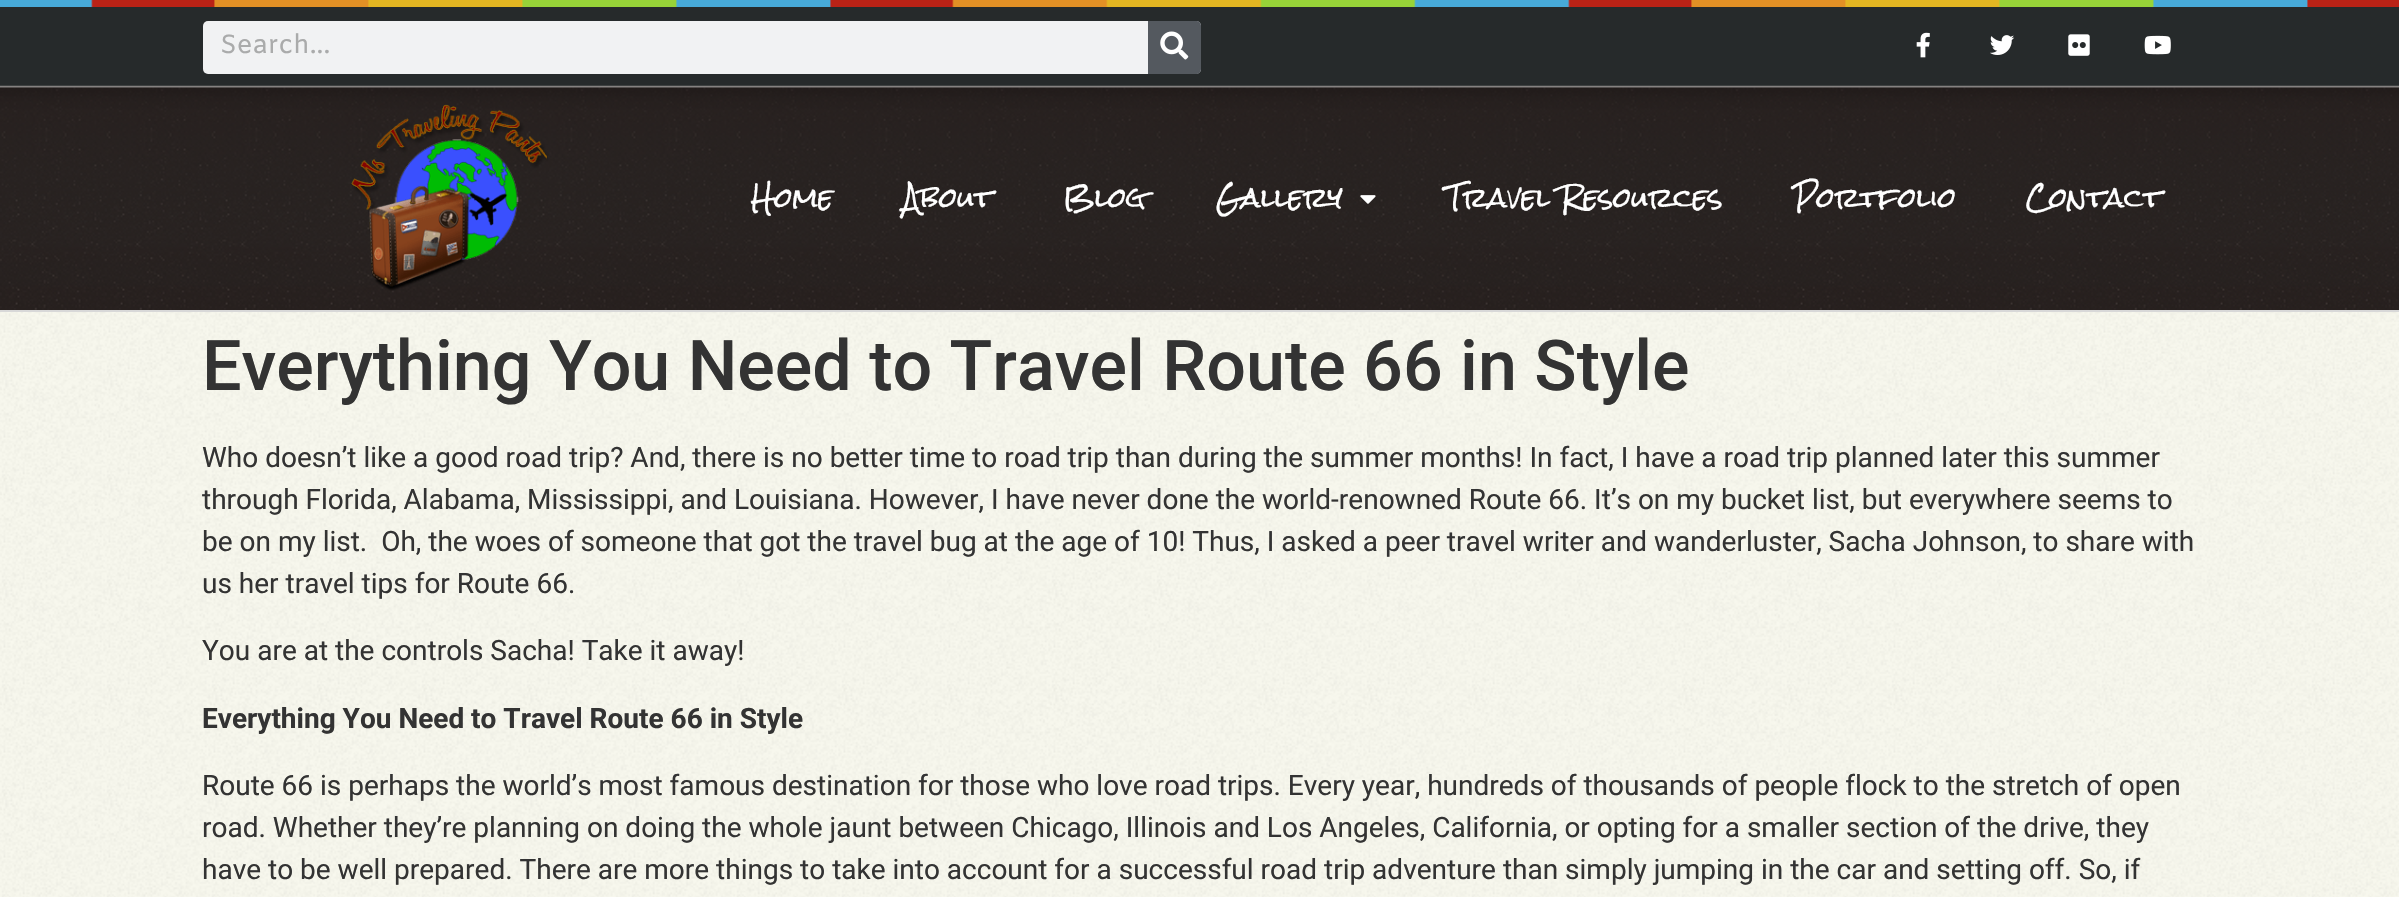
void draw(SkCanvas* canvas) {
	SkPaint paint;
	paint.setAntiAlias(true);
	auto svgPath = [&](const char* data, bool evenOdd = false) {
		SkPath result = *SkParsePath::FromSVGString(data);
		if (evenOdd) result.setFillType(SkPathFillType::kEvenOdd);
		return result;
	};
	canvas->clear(0xffffffff);
	canvas->drawImageRect(SkImages::DeferredFromEncodedData(SkData::MakeFromFileName("img1.png")), SkRect::MakeXYWH(0, 312, 2399, 585), SkSamplingOptions());
	canvas->drawImageRect(SkImages::DeferredFromEncodedData(SkData::MakeFromFileName("img2.png")), SkRect::MakeXYWH(0, 0, 2399, 7), SkSamplingOptions());
	paint.setColor(0xff262a2b);
	canvas->drawRect(SkRect::MakeXYWH(0, 7, 2399, 79), paint);
	paint.setColor(0xfff1f2f3);
	canvas->drawRoundRect(SkRect::MakeXYWH(203, 21, 998, 53), 5, 5, paint);
	SkFont f1(fontMgr->matchFamilyStyle("Amiko", SkFontStyle::Normal()), 26.25);
	f1.setSubpixel(true);
	paint.setColor(0xffaaabab);
	canvas->drawString("Search...", 220, 53, f1, paint);
	paint.setColor(0xff54595f);
	canvas->drawPath(svgPath("M1148 21H1196C1199 21 1201 23 1201 26V69C1201 72 1199 74 1196 74H1148Z"), paint);
	canvas->drawImageRect(SkImages::DeferredFromEncodedData(SkData::MakeFromFileName("img3.png")), SkRect::MakeXYWH(1160, 31, 29, 29), SkSamplingOptions());
	canvas->drawImageRect(SkImages::DeferredFromEncodedData(SkData::MakeFromFileName("img4.png")), SkRect::MakeXYWH(1916, 32, 14, 26), SkSamplingOptions());
	canvas->drawImageRect(SkImages::DeferredFromEncodedData(SkData::MakeFromFileName("img5.png")), SkRect::MakeXYWH(1990, 35, 25, 20), SkSamplingOptions());
	canvas->drawImageRect(SkImages::DeferredFromEncodedData(SkData::MakeFromFileName("img6.png")), SkRect::MakeXYWH(2068, 34, 22, 22), SkSamplingOptions());
	canvas->drawImageRect(SkImages::DeferredFromEncodedData(SkData::MakeFromFileName("img7.png")), SkRect::MakeXYWH(2144, 35, 27, 20), SkSamplingOptions());
	canvas->drawImageRect(SkImages::DeferredFromEncodedData(SkData::MakeFromFileName("img8.png")), SkRect::MakeXYWH(0, 85, 2399, 225), SkSamplingOptions());
	paint.setColor(0xffd8d8d8);
	canvas->drawRect(SkRect::MakeXYWH(0, 310, 2399, 2), paint);
	canvas->drawImageRect(SkImages::DeferredFromEncodedData(SkData::MakeFromFileName("img9.png")), SkRect::MakeXYWH(351, 104, 197, 187), SkSamplingOptions());
	SkFont f2(fontMgr->matchFamilyStyle("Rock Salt", SkFontStyle::Normal()), 26.25);
	f2.setSubpixel(true);
	paint.setColor(0xffffffff);
	canvas->drawString("Home", 751, 208, f2, paint);
	canvas->drawString("About", 903, 208, f2, paint);
	canvas->drawString("Blog", 1063, 208, f2, paint);
	canvas->drawString("Gallery", 1216, 208, f2, paint);
	canvas->drawImageRect(SkImages::DeferredFromEncodedData(SkData::MakeFromFileName("img10.png")), SkRect::MakeXYWH(1360, 195, 16, 9), SkSamplingOptions());
	canvas->drawString("Travel Resources", 1446, 208, f2, paint);
	canvas->drawString("Portfolio", 1793, 208, f2, paint);
	canvas->drawString("Contact", 2026, 208, f2, paint);
	SkFont f3(fontMgr->matchFamilyStyle("Roboto", SkFontStyle(500, SkFontStyle::kNormal_Width, SkFontStyle::kUpright_Slant)), 70);
	f3.setSubpixel(true);
	paint.setColor(0xff333333);
	canvas->drawString("Everything You Need to Travel Route 66 in Style", 202, 390, f3, paint);
	SkFont f4(fontMgr->matchFamilyStyle("Roboto", SkFontStyle::Normal()), 28);
	f4.setSubpixel(true);
	canvas->drawString("Who doesn’t like a good road trip? And, there is no better time to road trip than during the summer months! In fact, I have a road trip planned later this summer", 202, 467, f4, paint);
	canvas->drawString("through Florida, Alabama, Mississippi, and Louisiana. However, I have never done the world-renowned Route 66. It’s on my bucket list, but everywhere seems to", 202, 509, f4, paint);
	canvas->drawString("be on my list.  Oh, the woes of someone that got the travel bug at the age of 10! Thus, I asked a peer travel writer and wanderluster, Sacha Johnson, to share with", 202, 551, f4, paint);
	canvas->drawString("us her travel tips for Route 66.", 202, 593, f4, paint);
	canvas->drawString("You are at the controls Sacha! Take it away!", 202, 660, f4, paint);
	SkFont f5(fontMgr->matchFamilyStyle("Roboto", SkFontStyle::Bold()), 28);
	f5.setSubpixel(true);
	canvas->drawString("Everything You Need to Travel Route 66 in Style", 202, 728, f5, paint);
	canvas->drawString("Route 66 is perhaps the world’s most famous destination for those who love road trips. Every year, hundreds of thousands of people flock to the stretch of open", 202, 795, f4, paint);
	canvas->drawString("road. Whether they’re planning on doing the whole jaunt between Chicago, Illinois and Los Angeles, California, or opting for a smaller section of the drive, they", 202, 837, f4, paint);
	canvas->drawString("have to be well prepared. There are more things to take into account for a successful road trip adventure than simply jumping in the car and setting off. So, if", 202, 879, f4, paint);
}
